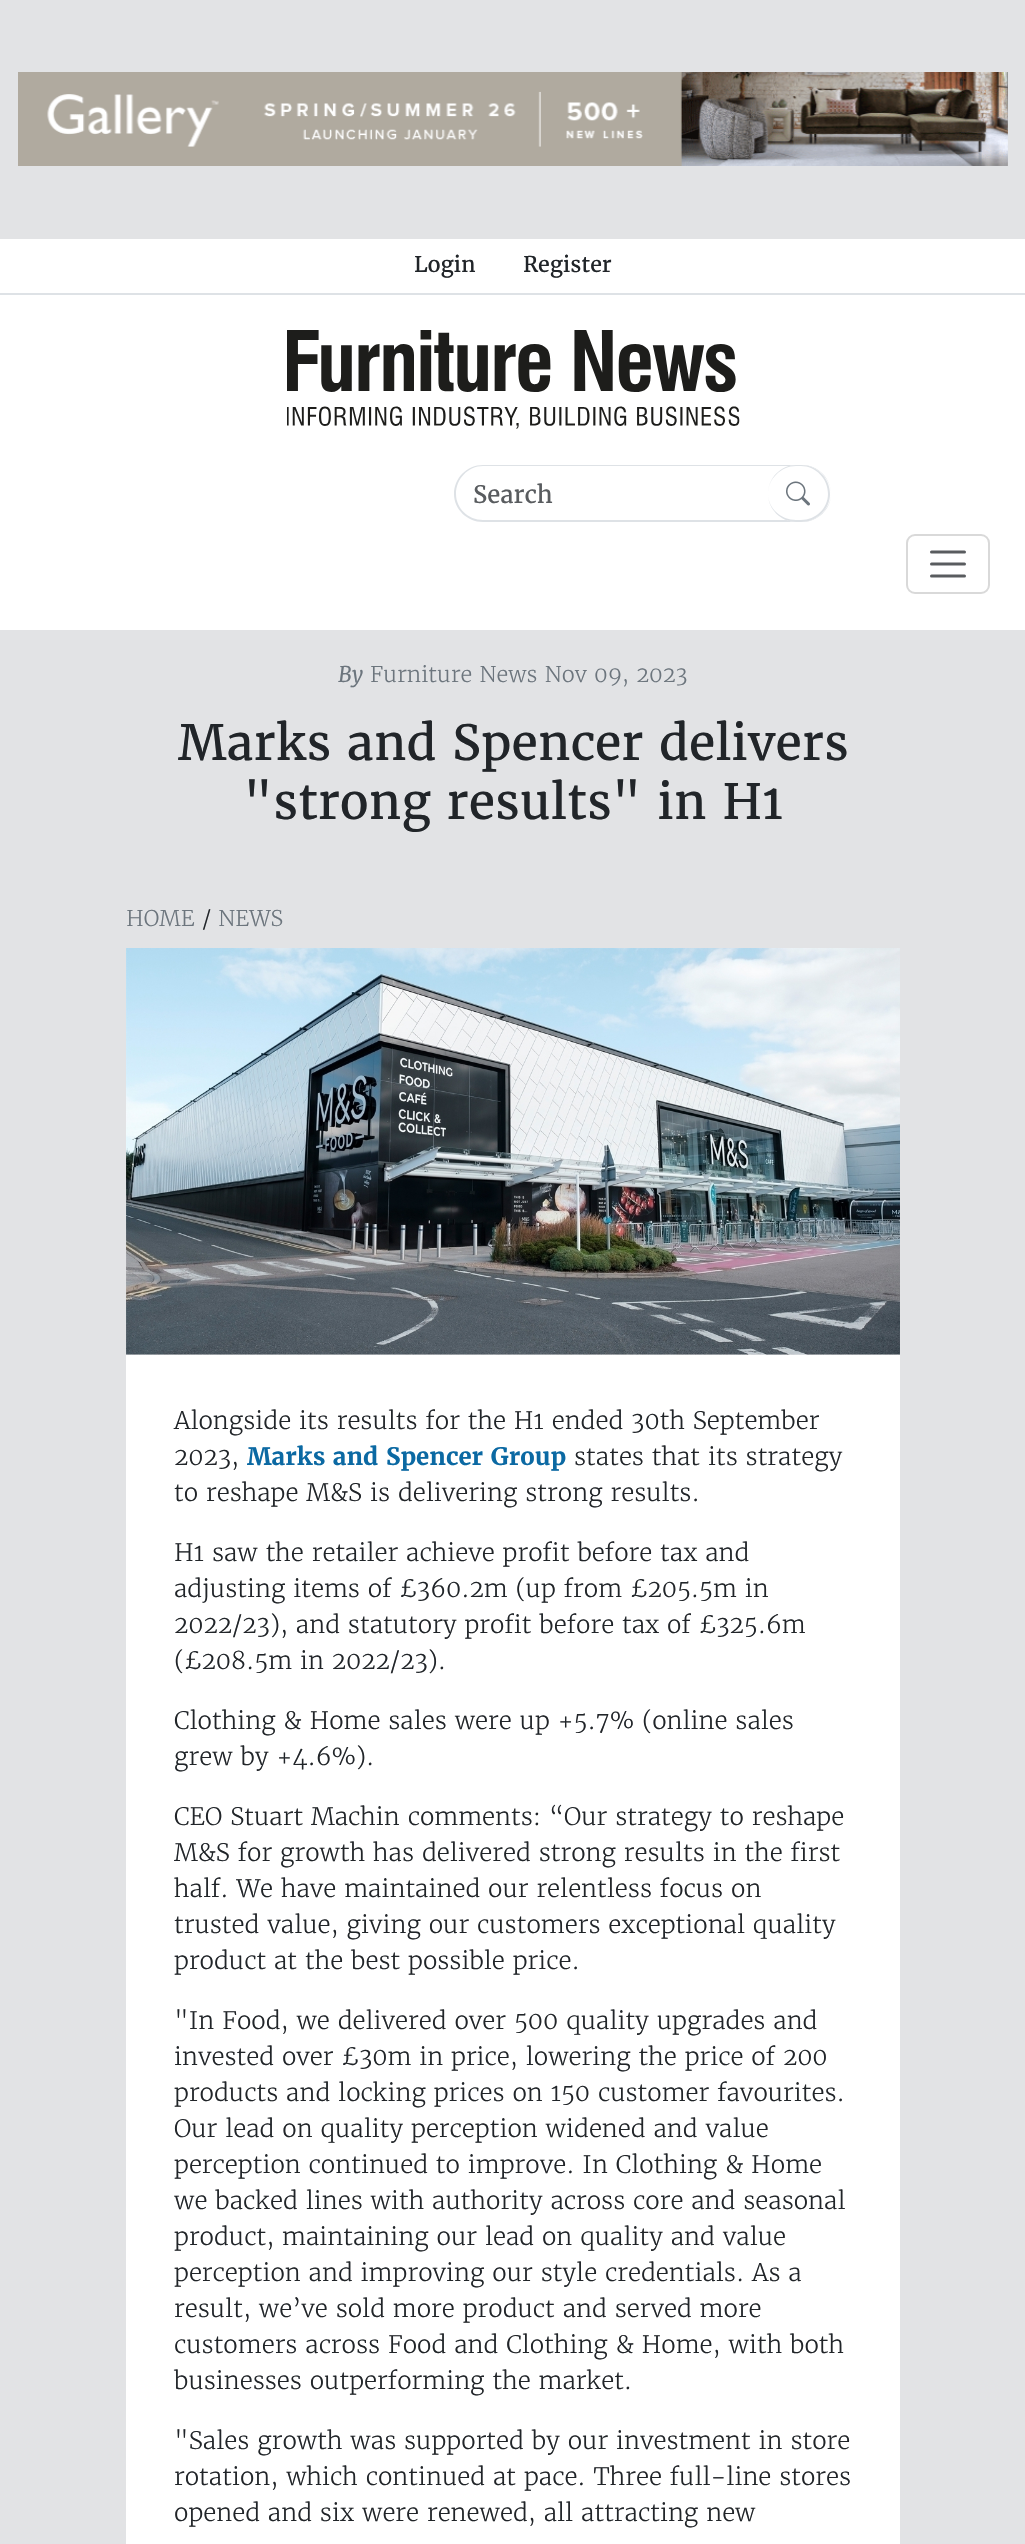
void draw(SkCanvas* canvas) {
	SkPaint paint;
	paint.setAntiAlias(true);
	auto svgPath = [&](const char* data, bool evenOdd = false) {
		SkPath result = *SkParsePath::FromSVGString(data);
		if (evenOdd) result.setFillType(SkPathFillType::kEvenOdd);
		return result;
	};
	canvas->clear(0xffe2e3e5);
	canvas->drawImageRect(SkImages::DeferredFromEncodedData(SkData::MakeFromFileName("img1.png")), SkRect::MakeXYWH(18, 72, 990, 94), SkSamplingOptions());
	paint.setColor(0xffffffff);
	canvas->drawRect(SkRect::MakeXYWH(0, 239, 1025, 391), paint);
	paint.setColor(0xffdee2e6);
	canvas->drawRect(SkRect::MakeXYWH(0, 293, 1025, 2), paint);
	SkFont f1(fontMgr->matchFamilyStyle("Merriweather", SkFontStyle::Normal()), 21.6);
	f1.setSubpixel(true);
	paint.setColor(0xff212529);
	canvas->drawString("Login", 414, 272, f1, paint);
	canvas->drawString("Register", 523, 272, f1, paint);
	canvas->drawImageRect(SkImages::DeferredFromEncodedData(SkData::MakeFromFileName("img2.png")), SkRect::MakeXYWH(287, 330, 453, 99), SkSamplingOptions());
	paint.setColor(0xffdee2e6);
	canvas->drawPath(svgPath("M483 465H802C818 465 831 478 831 494C831 509 818 522 802 522H483C467 522 454 509 454 494C454 478 467 465 483 465ZM483 466H802C818 466 831 479 831 494C831 508 818 520 802 520H483C468 520 456 508 456 494C456 479 468 466 483 466Z", true), paint);
	SkFont f2(fontMgr->matchFamilyStyle("Merriweather", SkFontStyle::Normal()), 24);
	f2.setSubpixel(true);
	paint.setColor(0xff595c5f);
	canvas->drawString("Search", 473, 503, f2, paint);
	paint.setColor(0xffffffff);
	canvas->drawRoundRect(SkRect::MakeXYWH(768, 465, 62, 57), 28.5, 28.5, paint);
	paint.setColor(0xffdee2e6);
	canvas->drawPath(svgPath("M796 465H801C817 465 830 478 830 494C830 509 817 522 801 522H796C781 522 768 509 768 494C768 478 781 465 796 465ZM796 466H801C816 466 828 479 828 494C828 508 816 520 801 520H796C781 520 768 508 768 494C768 479 781 466 796 466Z", true), paint);
	canvas->drawImageRect(SkImages::DeferredFromEncodedData(SkData::MakeFromFileName("img3.png")), SkRect::MakeXYWH(786, 481, 24, 25), SkSamplingOptions());
	paint.setStroke(true);
	paint.setStrokeWidth(2);
	paint.setColor(0xffd9d9d9);
	canvas->drawRoundRect(SkRect::MakeXYWH(907, 535, 82, 58), 8, 8, paint);
	paint.setStrokeWidth(3);
	paint.setStrokeCap(SkPaint::kRound_Cap);
	paint.setColor(0xff595c5f);
	canvas->drawPath(svgPath("M931.5 552H964.5M931.5 564H964.5M931.5 576H964.5"), paint);
	SkFont f3(fontMgr->matchFamilyStyle("Merriweather", SkFontStyle::Italic()), 21.6);
	f3.setSubpixel(true);
	paint.setStroke(false);
	paint.setColor(0xff6c757d);
	canvas->drawString("By", 338, 682, f3, paint);
	SkFont f4(fontMgr->matchFamilyStyle("Merriweather", SkFontStyle(300, SkFontStyle::kNormal_Width, SkFontStyle::kUpright_Slant)), 21.6);
	f4.setSubpixel(true);
	canvas->drawString("Furniture News Nov 09, 2023", 370, 682, f4, paint);
	SkFont f5(fontMgr->matchFamilyStyle("Merriweather", SkFontStyle::Normal()), 48.4);
	f5.setSubpixel(true);
	paint.setColor(0xff212529);
	canvas->drawString("Marks and Spencer delivers", 178, 760, f5, paint);
	canvas->drawString("\"strong results\" in H1", 243, 819, f5, paint);
	paint.setColor(0xff6c757d);
	canvas->drawString("HOME", 126, 926, f4, paint);
	paint.setColor(0xff212529);
	canvas->drawString("/", 202, 926, f4, paint);
	paint.setColor(0xff6c757d);
	canvas->drawString("NEWS", 218, 926, f4, paint);
	canvas->drawImageRect(SkImages::DeferredFromEncodedData(SkData::MakeFromFileName("img4.png")), SkRect::MakeXYWH(126, 948, 774, 407), SkSamplingOptions());
	paint.setColor(0xffffffff);
	canvas->drawRect(SkRect::MakeXYWH(126, 1355, 774, 1189), paint);
	SkFont f6(fontMgr->matchFamilyStyle("Merriweather", SkFontStyle(300, SkFontStyle::kNormal_Width, SkFontStyle::kUpright_Slant)), 24);
	f6.setSubpixel(true);
	paint.setColor(0xff212529);
	canvas->drawString("Alongside its results for the H1 ended 30th September", 174, 1429, f6, paint);
	canvas->drawString("2023,", 174, 1465, f6, paint);
	SkFont f7(fontMgr->matchFamilyStyle("Merriweather", SkFontStyle::Bold()), 24);
	f7.setSubpixel(true);
	paint.setColor(0xff0b69a3);
	canvas->drawString("Marks and Spencer Group", 247, 1465, f7, paint);
	paint.setColor(0xff212529);
	canvas->drawString("states that its strategy", 574, 1465, f6, paint);
	canvas->drawString("to reshape M&S is delivering strong results.", 174, 1501, f6, paint);
	canvas->drawString("H1 saw the retailer achieve profit before tax and", 174, 1561, f6, paint);
	canvas->drawString("adjusting items of £360.2m (up from £205.5m in", 174, 1597, f6, paint);
	canvas->drawString("2022/23), and statutory profit before tax of £325.6m", 174, 1633, f6, paint);
	canvas->drawString("(£208.5m in 2022/23).", 174, 1669, f6, paint);
	canvas->drawString("Clothing & Home sales were up +5.7% (online sales", 174, 1729, f6, paint);
	canvas->drawString("grew by +4.6%).", 174, 1765, f6, paint);
	canvas->drawString("CEO Stuart Machin comments: “Our strategy to reshape", 174, 1825, f6, paint);
	canvas->drawString("M&S for growth has delivered strong results in the first", 174, 1861, f6, paint);
	canvas->drawString("half. We have maintained our relentless focus on", 174, 1897, f6, paint);
	canvas->drawString("trusted value, giving our customers exceptional quality", 174, 1933, f6, paint);
	canvas->drawString("product at the best possible price.", 174, 1969, f6, paint);
	canvas->drawString("\"In Food, we delivered over 500 quality upgrades and", 174, 2029, f6, paint);
	canvas->drawString("invested over £30m in price, lowering the price of 200", 174, 2065, f6, paint);
	canvas->drawString("products and locking prices on 150 customer favourites.", 174, 2101, f6, paint);
	canvas->drawString("Our lead on quality perception widened and value", 174, 2137, f6, paint);
	canvas->drawString("perception continued to improve. In Clothing & Home", 174, 2173, f6, paint);
	canvas->drawString("we backed lines with authority across core and seasonal", 174, 2209, f6, paint);
	canvas->drawString("product, maintaining our lead on quality and value", 174, 2245, f6, paint);
	canvas->drawString("perception and improving our style credentials. As a", 174, 2281, f6, paint);
	canvas->drawString("result, we’ve sold more product and served more", 174, 2317, f6, paint);
	canvas->drawString("customers across Food and Clothing & Home, with both", 174, 2353, f6, paint);
	canvas->drawString("businesses outperforming the market.", 174, 2389, f6, paint);
	canvas->drawString("\"Sales growth was supported by our investment in store", 174, 2449, f6, paint);
	canvas->drawString("rotation, which continued at pace. Three full-line stores", 174, 2485, f6, paint);
	canvas->drawString("opened and six were renewed, all attracting new", 174, 2521, f6, paint);
}
